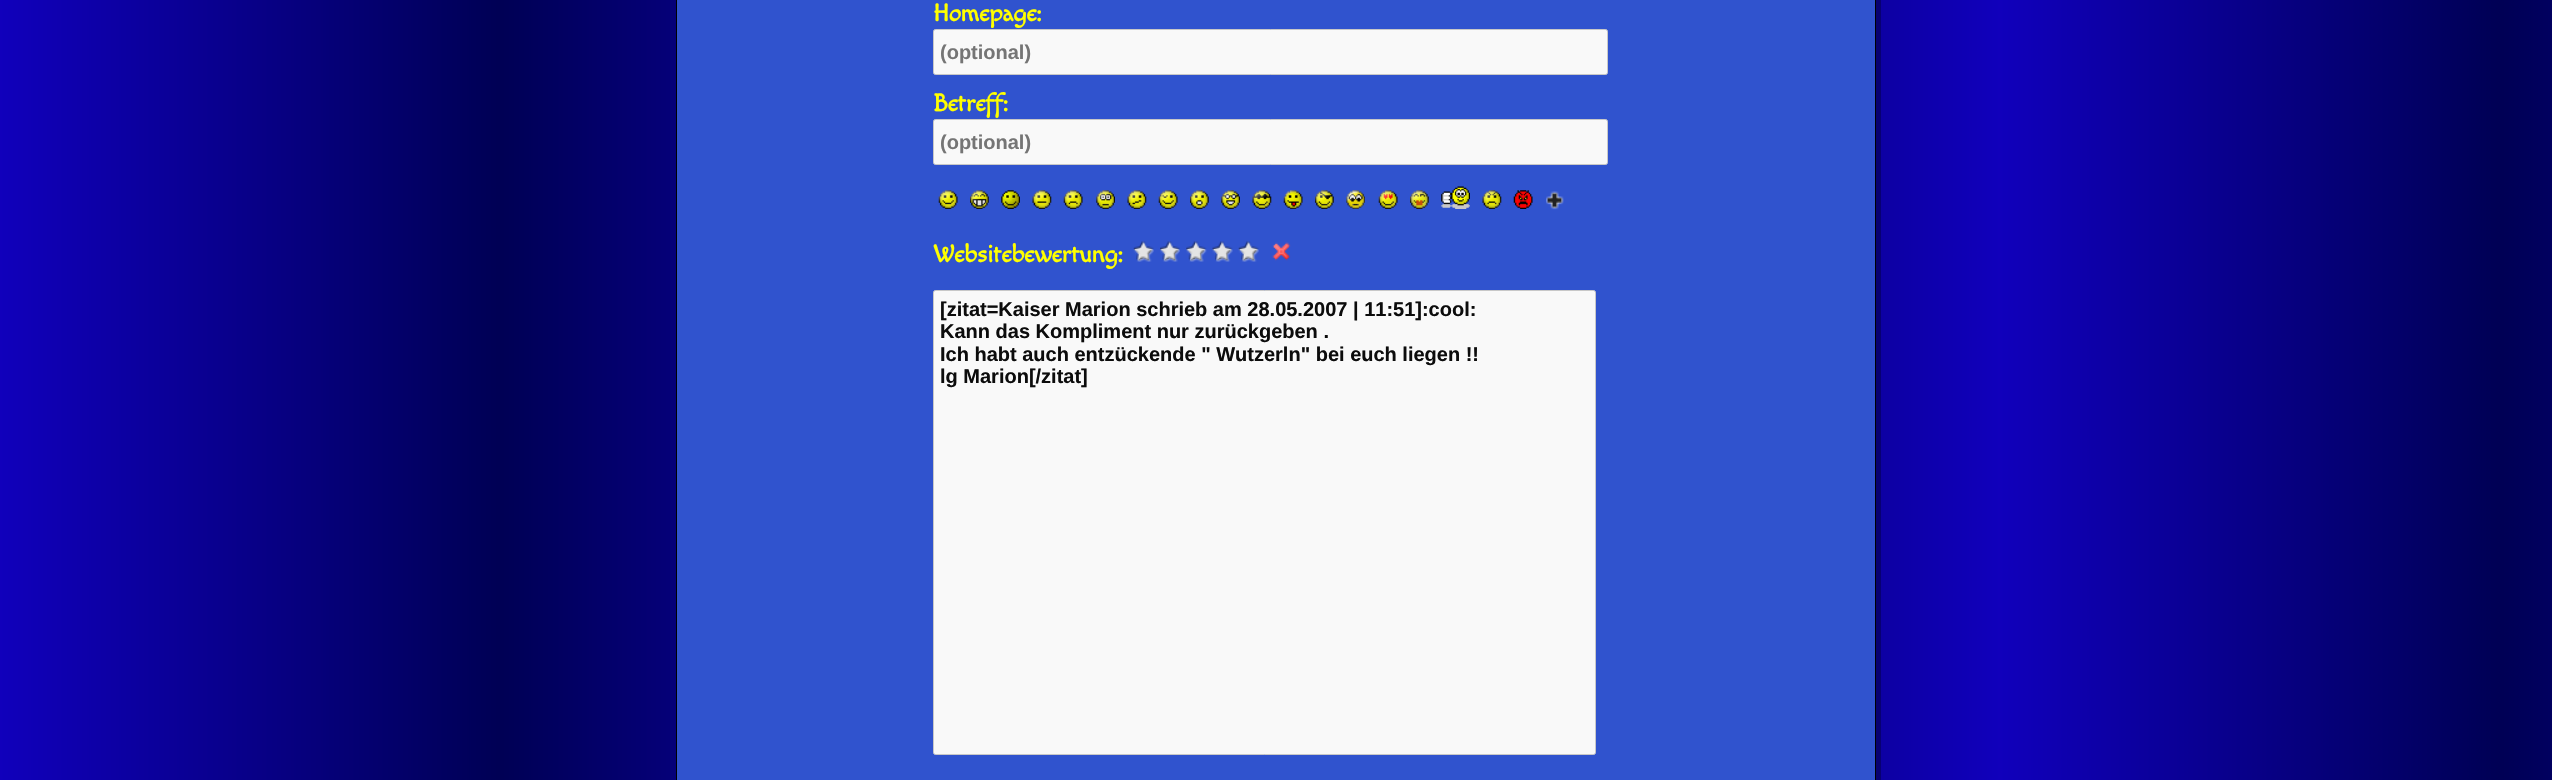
void draw(SkCanvas* canvas) {
	SkPaint paint;
	paint.setAntiAlias(true);
	auto svgPath = [&](const char* data, bool evenOdd = false) {
		SkPath result = *SkParsePath::FromSVGString(data);
		if (evenOdd) result.setFillType(SkPathFillType::kEvenOdd);
		return result;
	};
	canvas->clear(0xffffffff);
	canvas->drawImageRect(SkImages::DeferredFromEncodedData(SkData::MakeFromFileName("img1.png")), SkRect::MakeXYWH(0, 0, 2552, 780), SkSamplingOptions());
	paint.setColor(0xff080072);
	canvas->drawPath(svgPath("M681 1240C681 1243 683 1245 686 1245H1876C1879 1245 1881 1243 1881 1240V-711C1881-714 1879-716 1876-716V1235C1876 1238 1874 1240 1871 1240Z"), paint);
	paint.setColor(0xff3053ce);
	canvas->drawRect(SkRect::MakeXYWH(676.5, -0.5, 1199, 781), paint);
	paint.setStroke(true);
	paint.setStrokeWidth(1);
	paint.setColor(0xff000000);
	canvas->drawRect(SkRect::MakeXYWH(676.5, -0.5, 1199, 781), paint);
	SkFont f1(fontMgr->matchFamilyStyle("Macondo", SkFontStyle::Bold()), 24.5);
	f1.setSubpixel(true);
	paint.setStroke(false);
	paint.setColor(0xffffff00);
	canvas->drawString("Homepage:", 933, 21, f1, paint);
	paint.setColor(0xfff9f9f9);
	canvas->drawRoundRect(SkRect::MakeXYWH(933.5, 29.5, 674, 45), 2, 2, paint);
	paint.setStroke(true);
	paint.setColor(0xffc8c8c8);
	canvas->drawRoundRect(SkRect::MakeXYWH(933.5, 29.5, 674, 45), 2, 2, paint);
	SkFont f2(fontMgr->matchFamilyStyle("Liberation Sans", SkFontStyle::Bold()), 20);
	f2.setSubpixel(true);
	paint.setStroke(false);
	paint.setColor(0xff757575);
	canvas->drawString("(optional)", 940, 59, f2, paint);
	paint.setColor(0xffffff00);
	canvas->drawString("Betreff:", 933, 111, f1, paint);
	paint.setColor(0xfff9f9f9);
	canvas->drawRoundRect(SkRect::MakeXYWH(933.5, 119.5, 674, 45), 2, 2, paint);
	paint.setStroke(true);
	paint.setColor(0xffc8c8c8);
	canvas->drawRoundRect(SkRect::MakeXYWH(933.5, 119.5, 674, 45), 2, 2, paint);
	paint.setStroke(false);
	paint.setColor(0xff757575);
	canvas->drawString("(optional)", 940, 149, f2, paint);
	canvas->drawImageRect(SkImages::DeferredFromEncodedData(SkData::MakeFromFileName("img2.png")), SkRect::MakeXYWH(938, 190, 20, 19), SkSamplingOptions());
	canvas->drawImageRect(SkImages::DeferredFromEncodedData(SkData::MakeFromFileName("img3.png")), SkRect::MakeXYWH(970, 190, 19, 19), SkSamplingOptions());
	canvas->drawImageRect(SkImages::DeferredFromEncodedData(SkData::MakeFromFileName("img4.png")), SkRect::MakeXYWH(1001, 190, 19, 19), SkSamplingOptions());
	canvas->drawImageRect(SkImages::DeferredFromEncodedData(SkData::MakeFromFileName("img5.png")), SkRect::MakeXYWH(1032, 190, 20, 19), SkSamplingOptions());
	canvas->drawImageRect(SkImages::DeferredFromEncodedData(SkData::MakeFromFileName("img6.png")), SkRect::MakeXYWH(1063, 190, 20, 19), SkSamplingOptions());
	canvas->drawImageRect(SkImages::DeferredFromEncodedData(SkData::MakeFromFileName("img7.png")), SkRect::MakeXYWH(1096, 190, 19, 19), SkSamplingOptions());
	canvas->drawImageRect(SkImages::DeferredFromEncodedData(SkData::MakeFromFileName("img8.png")), SkRect::MakeXYWH(1127, 190, 20, 19), SkSamplingOptions());
	canvas->drawImageRect(SkImages::DeferredFromEncodedData(SkData::MakeFromFileName("img9.png")), SkRect::MakeXYWH(1158, 190, 20, 19), SkSamplingOptions());
	canvas->drawImageRect(SkImages::DeferredFromEncodedData(SkData::MakeFromFileName("img10.png")), SkRect::MakeXYWH(1190, 190, 19, 19), SkSamplingOptions());
	canvas->drawImageRect(SkImages::DeferredFromEncodedData(SkData::MakeFromFileName("img11.png")), SkRect::MakeXYWH(1221, 190, 19, 19), SkSamplingOptions());
	canvas->drawImageRect(SkImages::DeferredFromEncodedData(SkData::MakeFromFileName("img12.png")), SkRect::MakeXYWH(1252, 190, 20, 19), SkSamplingOptions());
	canvas->drawImageRect(SkImages::DeferredFromEncodedData(SkData::MakeFromFileName("img13.png")), SkRect::MakeXYWH(1283, 190, 20, 19), SkSamplingOptions());
	canvas->drawImageRect(SkImages::DeferredFromEncodedData(SkData::MakeFromFileName("img14.png")), SkRect::MakeXYWH(1315, 190, 19, 19), SkSamplingOptions());
	canvas->drawImageRect(SkImages::DeferredFromEncodedData(SkData::MakeFromFileName("img15.png")), SkRect::MakeXYWH(1346, 190, 19, 19), SkSamplingOptions());
	canvas->drawImageRect(SkImages::DeferredFromEncodedData(SkData::MakeFromFileName("img16.png")), SkRect::MakeXYWH(1378, 190, 20, 19), SkSamplingOptions());
	canvas->drawImageRect(SkImages::DeferredFromEncodedData(SkData::MakeFromFileName("img17.png")), SkRect::MakeXYWH(1410, 190, 19, 19), SkSamplingOptions());
	canvas->drawImageRect(SkImages::DeferredFromEncodedData(SkData::MakeFromFileName("img18.png")), SkRect::MakeXYWH(1441, 186, 29, 23), SkSamplingOptions());
	canvas->drawImageRect(SkImages::DeferredFromEncodedData(SkData::MakeFromFileName("img19.png")), SkRect::MakeXYWH(1482, 190, 20, 19), SkSamplingOptions());
	canvas->drawImageRect(SkImages::DeferredFromEncodedData(SkData::MakeFromFileName("img20.png")), SkRect::MakeXYWH(1513, 190, 20, 19), SkSamplingOptions());
	canvas->drawImageRect(SkImages::DeferredFromEncodedData(SkData::MakeFromFileName("img21.png")), SkRect::MakeXYWH(1546, 191, 18, 19), SkSamplingOptions());
	paint.setColor(0xffffff00);
	canvas->drawString("Websitebewertung:", 933, 262, f1, paint);
	canvas->drawImageRect(SkImages::DeferredFromEncodedData(SkData::MakeFromFileName("img22.png")), SkRect::MakeXYWH(1133, 241, 21, 21), SkSamplingOptions());
	canvas->drawImageRect(SkImages::DeferredFromEncodedData(SkData::MakeFromFileName("img23.png")), SkRect::MakeXYWH(1160, 241, 20, 21), SkSamplingOptions());
	canvas->drawImageRect(SkImages::DeferredFromEncodedData(SkData::MakeFromFileName("img24.png")), SkRect::MakeXYWH(1186, 241, 21, 21), SkSamplingOptions());
	canvas->drawImageRect(SkImages::DeferredFromEncodedData(SkData::MakeFromFileName("img25.png")), SkRect::MakeXYWH(1212, 241, 21, 21), SkSamplingOptions());
	canvas->drawImageRect(SkImages::DeferredFromEncodedData(SkData::MakeFromFileName("img26.png")), SkRect::MakeXYWH(1238, 241, 21, 21), SkSamplingOptions());
	canvas->drawImageRect(SkImages::DeferredFromEncodedData(SkData::MakeFromFileName("img27.png")), SkRect::MakeXYWH(1272, 242, 19, 19), SkSamplingOptions());
	paint.setColor(0xfff9f9f9);
	canvas->drawRoundRect(SkRect::MakeXYWH(933.5, 290.5, 662, 464), 2, 2, paint);
	paint.setStroke(true);
	paint.setColor(0xffc8c8c8);
	canvas->drawRoundRect(SkRect::MakeXYWH(933.5, 290.5, 662, 464), 2, 2, paint);
	paint.setStroke(false);
	paint.setColor(0xff0c0c0c);
	canvas->drawString("[zitat=Kaiser Marion schrieb am 28.05.2007 | 11:51]:cool:", 940, 316, f2, paint);
	canvas->drawString("Kann das Kompliment nur zurückgeben .", 940, 338, f2, paint);
	canvas->drawString("Ich habt auch entzückende \" Wutzerln\" bei euch liegen !!", 940, 361, f2, paint);
	canvas->drawString("lg Marion[/zitat]", 940, 383, f2, paint);
}
